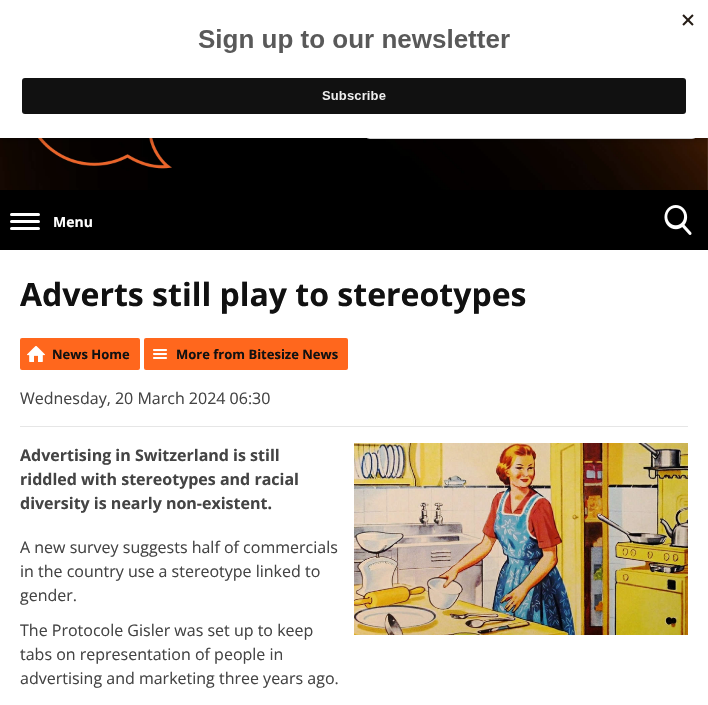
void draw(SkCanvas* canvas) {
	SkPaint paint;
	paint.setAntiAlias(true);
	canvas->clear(0xffffffff);
	canvas->drawImageRect(SkImages::DeferredFromEncodedData(SkData::MakeFromFileName("img1.png")), SkRect::MakeXYWH(0, 138, 708, 52), SkSamplingOptions());
	paint.setColor(0xfff5f5f5);
	canvas->drawRoundRect(SkRect::MakeXYWH(364, 51, 334, 88), 6, 6, paint);
	canvas->drawImageRect(SkImages::DeferredFromEncodedData(SkData::MakeFromFileName("img3.png")), SkRect::MakeXYWH(38, 138, 134, 31), SkSamplingOptions());
	paint.setColor(0x33000000);
	paint.setMaskFilter(SkMaskFilter::MakeBlur(kNormal_SkBlurStyle, 3));
	canvas->drawRect(SkRect::MakeXYWH(0, 3, 708, 138), paint);
	paint.setMaskFilter(nullptr);
	paint.setColor(0xffffffff);
	canvas->drawRect(SkRect::MakeXYWH(0, 0, 708, 138), paint);
	canvas->drawImageRect(SkImages::DeferredFromEncodedData(SkData::MakeFromFileName("img2.png")), SkRect::MakeXYWH(22, 14, 672, 100), SkSamplingOptions());
	paint.setColor(0xff000000);
	canvas->drawRect(SkRect::MakeXYWH(0, 190, 708, 60), paint);
	paint.setColor(0xffffffff);
	canvas->drawRoundRect(SkRect::MakeXYWH(10, 213, 30, 3), 1.5, 1.5, paint);
	canvas->drawRoundRect(SkRect::MakeXYWH(10, 220, 30, 3), 1.5, 1.5, paint);
	canvas->drawRoundRect(SkRect::MakeXYWH(10, 227, 30, 3), 1.5, 1.5, paint);
	SkFont f1(fontMgr->matchFamilyStyle("Open Sans", SkFontStyle::Bold()), 14);
	f1.setSubpixel(true);
	canvas->drawString("Menu", 53, 227, f1, paint);
	canvas->drawImageRect(SkImages::DeferredFromEncodedData(SkData::MakeFromFileName("img4.png")), SkRect::MakeXYWH(664, 205, 28, 30), SkSamplingOptions());
	SkFont f2(fontMgr->matchFamilyStyle("Open Sans", SkFontStyle::Bold()), 32);
	f2.setSubpixel(true);
	paint.setColor(0xff111111);
	canvas->drawString("Adverts still play to stereotypes", 20, 306, f2, paint);
	paint.setColor(0xffff671d);
	canvas->drawRoundRect(SkRect::MakeXYWH(20, 338, 120, 32), 2, 2, paint);
	canvas->drawImageRect(SkImages::DeferredFromEncodedData(SkData::MakeFromFileName("img5.png")), SkRect::MakeXYWH(27, 346, 18, 16), SkSamplingOptions());
	SkFont f3(fontMgr->matchFamilyStyle("Open Sans", SkFontStyle::Bold()), 13);
	f3.setSubpixel(true);
	paint.setColor(0xff111111);
	canvas->drawString("News Home", 52, 359, f3, paint);
	paint.setColor(0xffff671d);
	canvas->drawRoundRect(SkRect::MakeXYWH(144, 338, 204, 32), 2, 2, paint);
	canvas->drawImageRect(SkImages::DeferredFromEncodedData(SkData::MakeFromFileName("img6.png")), SkRect::MakeXYWH(153, 349, 14, 10), SkSamplingOptions());
	paint.setColor(0xff111111);
	canvas->drawString("More from Bitesize News", 176, 359, f3, paint);
	paint.setColor(0xffe6e6e6);
	canvas->drawRect(SkRect::MakeXYWH(20, 426, 668, 1), paint);
	SkFont f4(fontMgr->matchFamilyStyle("Open Sans", SkFontStyle::Normal()), 16);
	f4.setSubpixel(true);
	paint.setColor(0xff444444);
	canvas->drawString("Wednesday, 20 March 2024 06:30", 20, 404, f4, paint);
	SkFont f5(fontMgr->matchFamilyStyle("Open Sans", SkFontStyle::Bold()), 16);
	f5.setSubpixel(true);
	canvas->drawString("Advertising in Switzerland is still", 20, 461, f5, paint);
	canvas->drawString("riddled with stereotypes and racial", 20, 485, f5, paint);
	canvas->drawString("diversity is nearly non-existent.", 20, 509, f5, paint);
	canvas->drawImageRect(SkImages::DeferredFromEncodedData(SkData::MakeFromFileName("img7.png")), SkRect::MakeXYWH(354, 443, 334, 192), SkSamplingOptions());
	canvas->drawString("A new survey suggests half of commercials", 20, 553, f4, paint);
	canvas->drawString("in the country use a stereotype linked to", 20, 577, f4, paint);
	canvas->drawString("gender.", 20, 601, f4, paint);
	canvas->drawString("The Protocole Gisler was set up to keep", 20, 636, f4, paint);
	canvas->drawString("tabs on representation of people in", 20, 660, f4, paint);
	canvas->drawString("advertising and marketing three years ago.", 20, 684, f4, paint);
}
